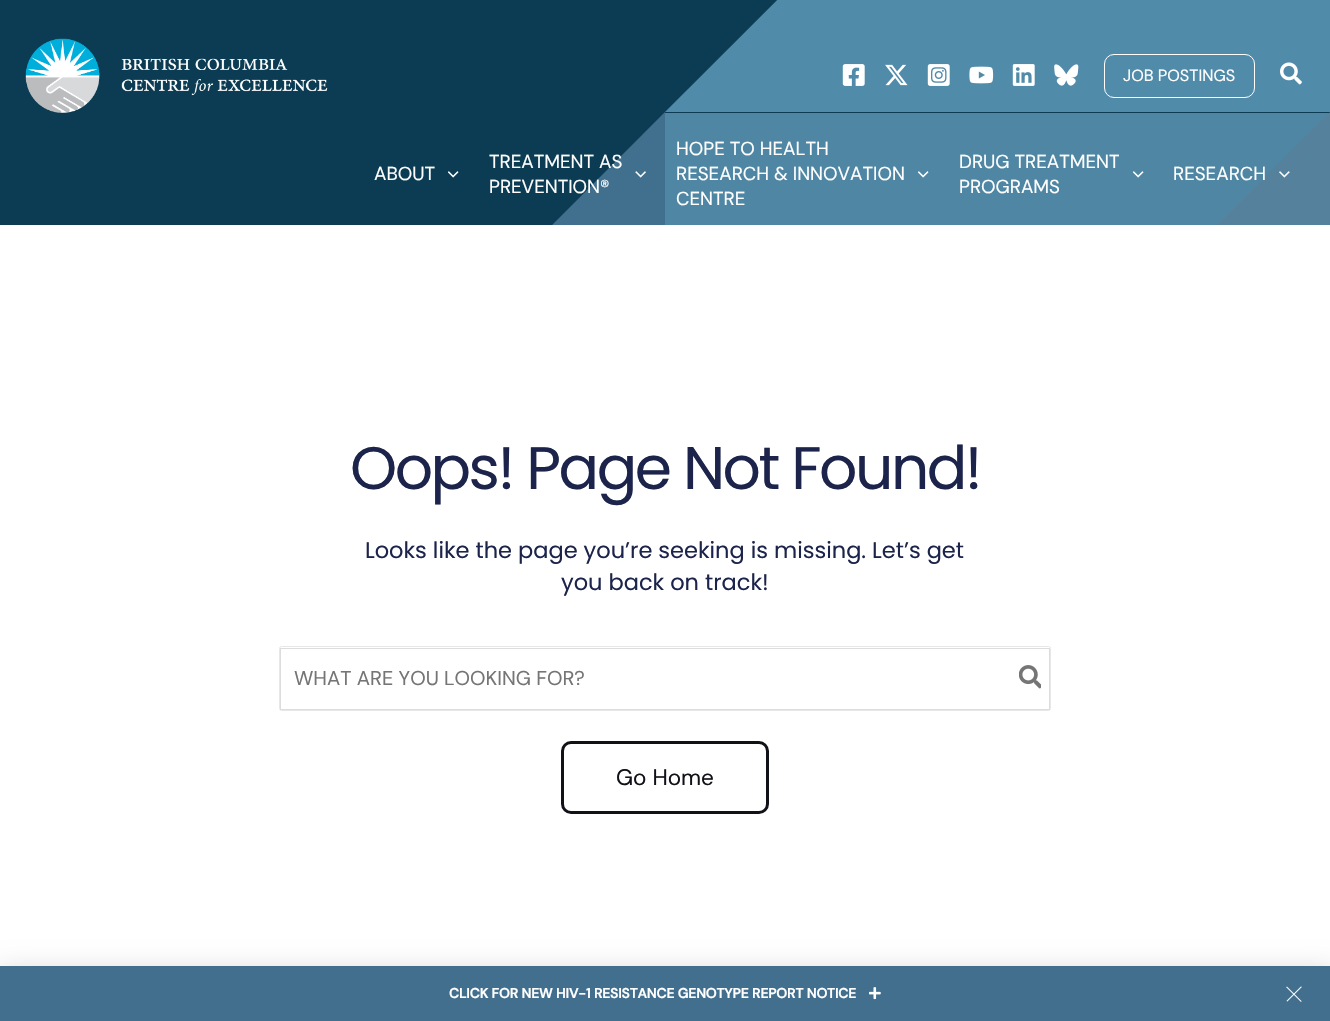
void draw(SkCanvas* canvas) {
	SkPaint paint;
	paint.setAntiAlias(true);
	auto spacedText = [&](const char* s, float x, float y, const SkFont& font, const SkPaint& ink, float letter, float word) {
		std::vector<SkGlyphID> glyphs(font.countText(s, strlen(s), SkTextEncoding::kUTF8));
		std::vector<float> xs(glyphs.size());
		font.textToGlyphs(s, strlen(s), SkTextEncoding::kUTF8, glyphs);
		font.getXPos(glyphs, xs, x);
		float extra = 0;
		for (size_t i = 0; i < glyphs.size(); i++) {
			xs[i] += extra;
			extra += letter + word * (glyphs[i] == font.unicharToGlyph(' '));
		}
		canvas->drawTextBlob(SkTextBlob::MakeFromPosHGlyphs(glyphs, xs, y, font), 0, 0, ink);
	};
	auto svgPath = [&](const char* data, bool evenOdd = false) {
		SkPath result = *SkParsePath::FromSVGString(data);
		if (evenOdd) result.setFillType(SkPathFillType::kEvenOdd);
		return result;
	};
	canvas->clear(0xffffffff);
	paint.setColor(0xff0b3c53);
	canvas->drawRect(SkRect::MakeXYWH(0, 0, 1330, 225), paint);
	canvas->drawImageRect(SkImages::DeferredFromEncodedData(SkData::MakeFromFileName("img1.png")), SkRect::MakeXYWH(25, 38, 303, 75), SkSamplingOptions());
	paint.setColor(0xff518baa);
	canvas->drawPath(svgPath("M1330-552V112H665Z"), paint);
	canvas->drawImageRect(SkImages::DeferredFromEncodedData(SkData::MakeFromFileName("img2.png")), SkRect::MakeXYWH(842, 64, 23, 22), SkSamplingOptions());
	canvas->drawImageRect(SkImages::DeferredFromEncodedData(SkData::MakeFromFileName("img3.png")), SkRect::MakeXYWH(885, 64, 23, 22), SkSamplingOptions());
	canvas->drawImageRect(SkImages::DeferredFromEncodedData(SkData::MakeFromFileName("img4.png")), SkRect::MakeXYWH(927, 64, 23, 22), SkSamplingOptions());
	canvas->drawImageRect(SkImages::DeferredFromEncodedData(SkData::MakeFromFileName("img5.png")), SkRect::MakeXYWH(969, 66, 25, 18), SkSamplingOptions());
	canvas->drawImageRect(SkImages::DeferredFromEncodedData(SkData::MakeFromFileName("img6.png")), SkRect::MakeXYWH(1012, 64, 23, 22), SkSamplingOptions());
	canvas->drawImageRect(SkImages::DeferredFromEncodedData(SkData::MakeFromFileName("img7.png")), SkRect::MakeXYWH(1054, 64, 25, 22), SkSamplingOptions());
	paint.setStroke(true);
	paint.setStrokeWidth(1);
	paint.setColor(0xffffffff);
	canvas->drawRoundRect(SkRect::MakeXYWH(1104.5, 54.5, 150, 43), 9.5, 9.5, paint);
	SkFont f1(fontMgr->matchFamilyStyle("DM Sans", SkFontStyle::Normal()), 16.25);
	f1.setSubpixel(true);
	paint.setStroke(false);
	canvas->drawString("JOB POSTINGS", 1123, 81, f1, paint);
	canvas->drawImageRect(SkImages::DeferredFromEncodedData(SkData::MakeFromFileName("img8.png")), SkRect::MakeXYWH(1280, 62, 22, 23), SkSamplingOptions());
	SkFont f2(fontMgr->matchFamilyStyle("DM Sans", SkFontStyle::Normal()), 18.75);
	f2.setSubpixel(true);
	canvas->drawString("ABOUT", 374, 180, f2, paint);
	canvas->drawImageRect(SkImages::DeferredFromEncodedData(SkData::MakeFromFileName("img9.png")), SkRect::MakeXYWH(448, 171, 11, 7), SkSamplingOptions());
	canvas->save();
	canvas->clipRect(SkRect::MakeXYWH(0, 0, 1330, 225));
	paint.setColor(0xff41708e);
	canvas->drawPath(svgPath("M665 112V778H0Z"), paint);
	canvas->restore();
	paint.setColor(0xffffffff);
	canvas->drawString("TREATMENT AS", 489, 168, f2, paint);
	canvas->drawString("PREVENTION®", 489, 193, f2, paint);
	canvas->drawImageRect(SkImages::DeferredFromEncodedData(SkData::MakeFromFileName("img10.png")), SkRect::MakeXYWH(635, 171, 11, 7), SkSamplingOptions());
	paint.setColor(0xff4e86a3);
	canvas->drawRect(SkRect::MakeXYWH(665, 113, 665, 112), paint);
	paint.setColor(0xffffffff);
	canvas->drawString("HOPE TO HEALTH", 676, 155, f2, paint);
	canvas->drawString("RESEARCH & INNOVATION", 676, 180, f2, paint);
	canvas->drawString("CENTRE", 676, 205, f2, paint);
	canvas->drawImageRect(SkImages::DeferredFromEncodedData(SkData::MakeFromFileName("img11.png")), SkRect::MakeXYWH(918, 171, 11, 7), SkSamplingOptions());
	canvas->drawString("DRUG TREATMENT", 959, 168, f2, paint);
	canvas->drawString("PROGRAMS", 959, 193, f2, paint);
	canvas->drawImageRect(SkImages::DeferredFromEncodedData(SkData::MakeFromFileName("img11.png")), SkRect::MakeXYWH(1133, 171, 11, 7), SkSamplingOptions());
	canvas->save();
	canvas->clipRect(SkRect::MakeXYWH(0, 0, 1330, 225));
	paint.setColor(0xb3577f99);
	canvas->drawPath(svgPath("M1330 112V778H665Z"), paint);
	canvas->restore();
	paint.setColor(0xffffffff);
	canvas->drawString("RESEARCH", 1173, 180, f2, paint);
	canvas->drawImageRect(SkImages::DeferredFromEncodedData(SkData::MakeFromFileName("img12.png")), SkRect::MakeXYWH(1279, 171, 11, 7), SkSamplingOptions());
	SkFont f3(fontMgr->matchFamilyStyle("Poppins", SkFontStyle::Normal()), 60);
	f3.setSubpixel(true);
	paint.setColor(0xff1c244b);
	spacedText("Oops! Page Not Found!", 350, 489, f3, paint, -2.5, 0);
	SkFont f4(fontMgr->matchFamilyStyle("Poppins", SkFontStyle::Normal()), 22.5);
	f4.setSubpixel(true);
	canvas->drawString("Looks like the page you’re seeking is missing. Let’s get", 365, 558, f4, paint);
	canvas->drawString("you back on track!", 561, 590, f4, paint);
	paint.setStroke(true);
	paint.setColor(0xffe7e7e7);
	canvas->drawRoundRect(SkRect::MakeXYWH(279.5, 646.5, 771, 64), 2, 2, paint);
	paint.setColor(0xffdddddd);
	canvas->drawRect(SkRect::MakeXYWH(280.5, 648.5, 769, 61), paint);
	SkFont f5(fontMgr->matchFamilyStyle("DM Sans", SkFontStyle::Normal()), 20);
	f5.setSubpixel(true);
	paint.setStroke(false);
	paint.setColor(0xff757575);
	canvas->drawString("WHAT ARE YOU LOOKING FOR?", 294, 685, f5, paint);
	canvas->drawImageRect(SkImages::DeferredFromEncodedData(SkData::MakeFromFileName("img13.png")), SkRect::MakeXYWH(1019, 665, 22, 24), SkSamplingOptions());
	paint.setStroke(true);
	paint.setStrokeWidth(3);
	paint.setColor(0xff101218);
	canvas->drawRoundRect(SkRect::MakeXYWH(562.5, 742.5, 205, 70), 8.5, 8.5, paint);
	SkFont f6(fontMgr->matchFamilyStyle("DM Sans", SkFontStyle::Normal()), 22.5);
	f6.setSubpixel(true);
	paint.setStroke(false);
	canvas->drawString("Go Home", 616, 785, f6, paint);
	paint.setColor(0x33000000);
	paint.setMaskFilter(SkMaskFilter::MakeBlur(kNormal_SkBlurStyle, 14.5));
	canvas->drawRect(SkRect::MakeXYWH(-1, 973, 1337, 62), paint);
	paint.setMaskFilter(nullptr);
	paint.setColor(0xff436f8f);
	canvas->drawRect(SkRect::MakeXYWH(0, 966, 1330, 55), paint);
	SkFont f7(fontMgr->matchFamilyStyle("DM Sans", SkFontStyle::Bold()), 13.75);
	f7.setSubpixel(true);
	paint.setColor(0xffffffff);
	canvas->drawString("CLICK FOR NEW HIV-1 RESISTANCE GENOTYPE REPORT NOTICE", 449, 998, f7, paint);
	canvas->drawImageRect(SkImages::DeferredFromEncodedData(SkData::MakeFromFileName("img14.png")), SkRect::MakeXYWH(869, 987, 12, 13), SkSamplingOptions());
	canvas->drawImageRect(SkImages::DeferredFromEncodedData(SkData::MakeFromFileName("img15.png")), SkRect::MakeXYWH(1286, 986, 16, 16), SkSamplingOptions());
}
